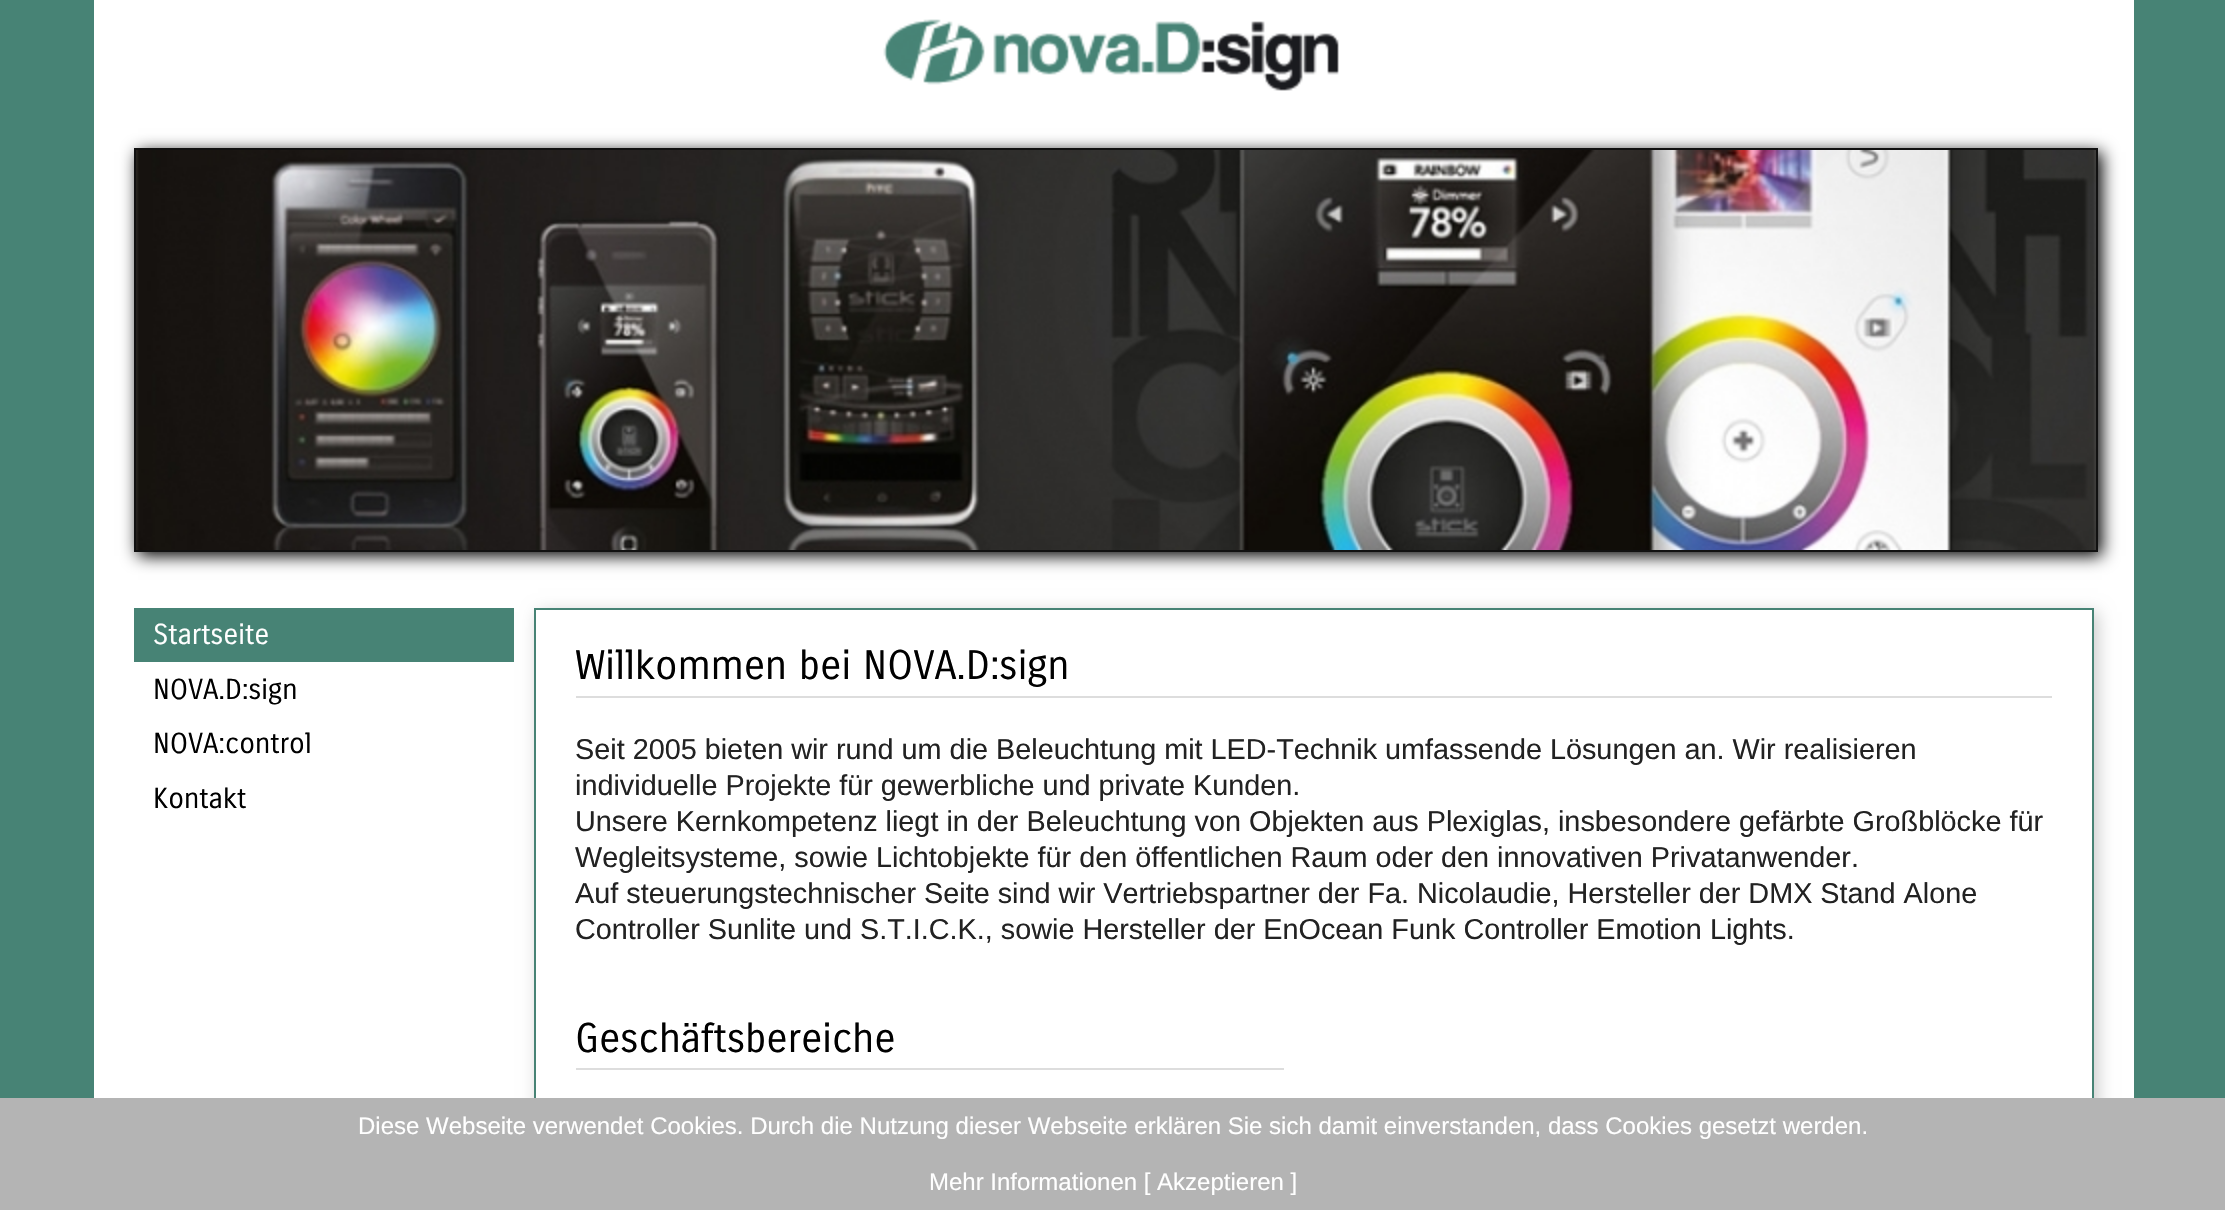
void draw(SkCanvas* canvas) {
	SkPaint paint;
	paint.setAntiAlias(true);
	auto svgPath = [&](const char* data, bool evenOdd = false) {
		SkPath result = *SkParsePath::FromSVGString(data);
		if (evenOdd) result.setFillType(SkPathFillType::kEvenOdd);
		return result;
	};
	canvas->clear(0xff478375);
	paint.setColor(0xffffffff);
	canvas->drawRect(SkRect::MakeXYWH(94, 0, 2040, 1098), paint);
	canvas->drawImageRect(SkImages::DeferredFromEncodedData(SkData::MakeFromFileName("img1.png")), SkRect::MakeXYWH(883, 19, 456, 72), SkSamplingOptions());
	paint.setColor(0xff000000);
	paint.setMaskFilter(SkMaskFilter::MakeBlur(kNormal_SkBlurStyle, 8));
	canvas->drawRect(SkRect::MakeXYWH(138, 152, 1964, 404), paint);
	paint.setMaskFilter(nullptr);
	paint.setStroke(true);
	paint.setStrokeWidth(2);
	paint.setColor(0xff111111);
	canvas->drawRect(SkRect::MakeXYWH(135, 149, 1962, 402), paint);
	canvas->drawImageRect(SkImages::DeferredFromEncodedData(SkData::MakeFromFileName("img2.png")), SkRect::MakeXYWH(136, 150, 1960, 400), SkSamplingOptions());
	paint.setStroke(false);
	paint.setColor(0xff478375);
	canvas->drawRect(SkRect::MakeXYWH(134, 608, 380, 54), paint);
	SkFont f1(fontMgr->matchFamilyStyle("Carrois Gothic", SkFontStyle::Normal()), 28);
	f1.setSubpixel(true);
	paint.setColor(0xffffffff);
	canvas->drawString("Startseite", 153, 644, f1, paint);
	paint.setColor(0xff000000);
	canvas->drawString("NOVA.D:sign", 153, 699, f1, paint);
	canvas->drawString("NOVA:control", 153, 753, f1, paint);
	canvas->drawString("Kontakt", 153, 808, f1, paint);
	canvas->save();
	canvas->clipPath(svgPath("M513 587H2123V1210H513ZM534 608H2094V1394H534Z", true), true);
	paint.setColor(0xffcccccc);
	paint.setMaskFilter(SkMaskFilter::MakeBlur(kNormal_SkBlurStyle, 8));
	canvas->drawRect(SkRect::MakeXYWH(538, 612, 1560, 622), paint);
	paint.setMaskFilter(nullptr);
	canvas->restore();
	paint.setStroke(true);
	paint.setColor(0xff478375);
	canvas->drawRect(SkRect::MakeXYWH(535, 609, 1558, 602), paint);
	paint.setStroke(false);
	paint.setColor(0xffdddddd);
	canvas->drawRect(SkRect::MakeXYWH(576, 696, 1476, 2), paint);
	SkFont f2(fontMgr->matchFamilyStyle("Carrois Gothic", SkFontStyle::Normal()), 40);
	f2.setSubpixel(true);
	paint.setColor(0xff000000);
	canvas->drawString("Willkommen bei NOVA.D:sign", 575, 679, f2, paint);
	SkFont f3(fontMgr->matchFamilyStyle("Liberation Sans", SkFontStyle::Normal()), 28.8);
	f3.setSubpixel(true);
	paint.setColor(0xff222222);
	canvas->drawString("Seit 2005 bieten wir rund um die Beleuchtung mit LED-Technik umfassende Lösungen an. Wir realisieren", 575, 759, f3, paint);
	canvas->drawString("individuelle Projekte für gewerbliche und private Kunden.", 575, 795, f3, paint);
	canvas->drawString("Unsere Kernkompetenz liegt in der Beleuchtung von Objekten aus Plexiglas, insbesondere gefärbte Großblöcke für", 575, 831, f3, paint);
	canvas->drawString("Wegleitsysteme, sowie Lichtobjekte für den öffentlichen Raum oder den innovativen Privatanwender.", 575, 867, f3, paint);
	canvas->drawString("Auf steuerungstechnischer Seite sind wir Vertriebspartner der Fa. Nicolaudie, Hersteller der DMX Stand Alone", 575, 903, f3, paint);
	canvas->drawString("Controller Sunlite und S.T.I.C.K., sowie Hersteller der EnOcean Funk Controller Emotion Lights.", 575, 939, f3, paint);
	paint.setColor(0xffdddddd);
	canvas->drawRect(SkRect::MakeXYWH(576, 1068, 708, 2), paint);
	paint.setColor(0xff000000);
	canvas->drawString("Geschäftsbereiche", 575, 1052, f2, paint);
	paint.setColor(0xffb4b4b4);
	canvas->drawRect(SkRect::MakeXYWH(0, 1098, 2225, 112), paint);
	SkFont f4(fontMgr->matchFamilyStyle("Liberation Sans", SkFontStyle::Normal()), 24);
	f4.setSubpixel(true);
	paint.setColor(0xffffffff);
	canvas->drawString("Diese Webseite verwendet Cookies. Durch die Nutzung dieser Webseite erklären Sie sich damit einverstanden, dass Cookies gesetzt werden.", 358, 1134, f4, paint);
	canvas->drawString("Mehr Informationen [ Akzeptieren ]", 929, 1190, f4, paint);
}
